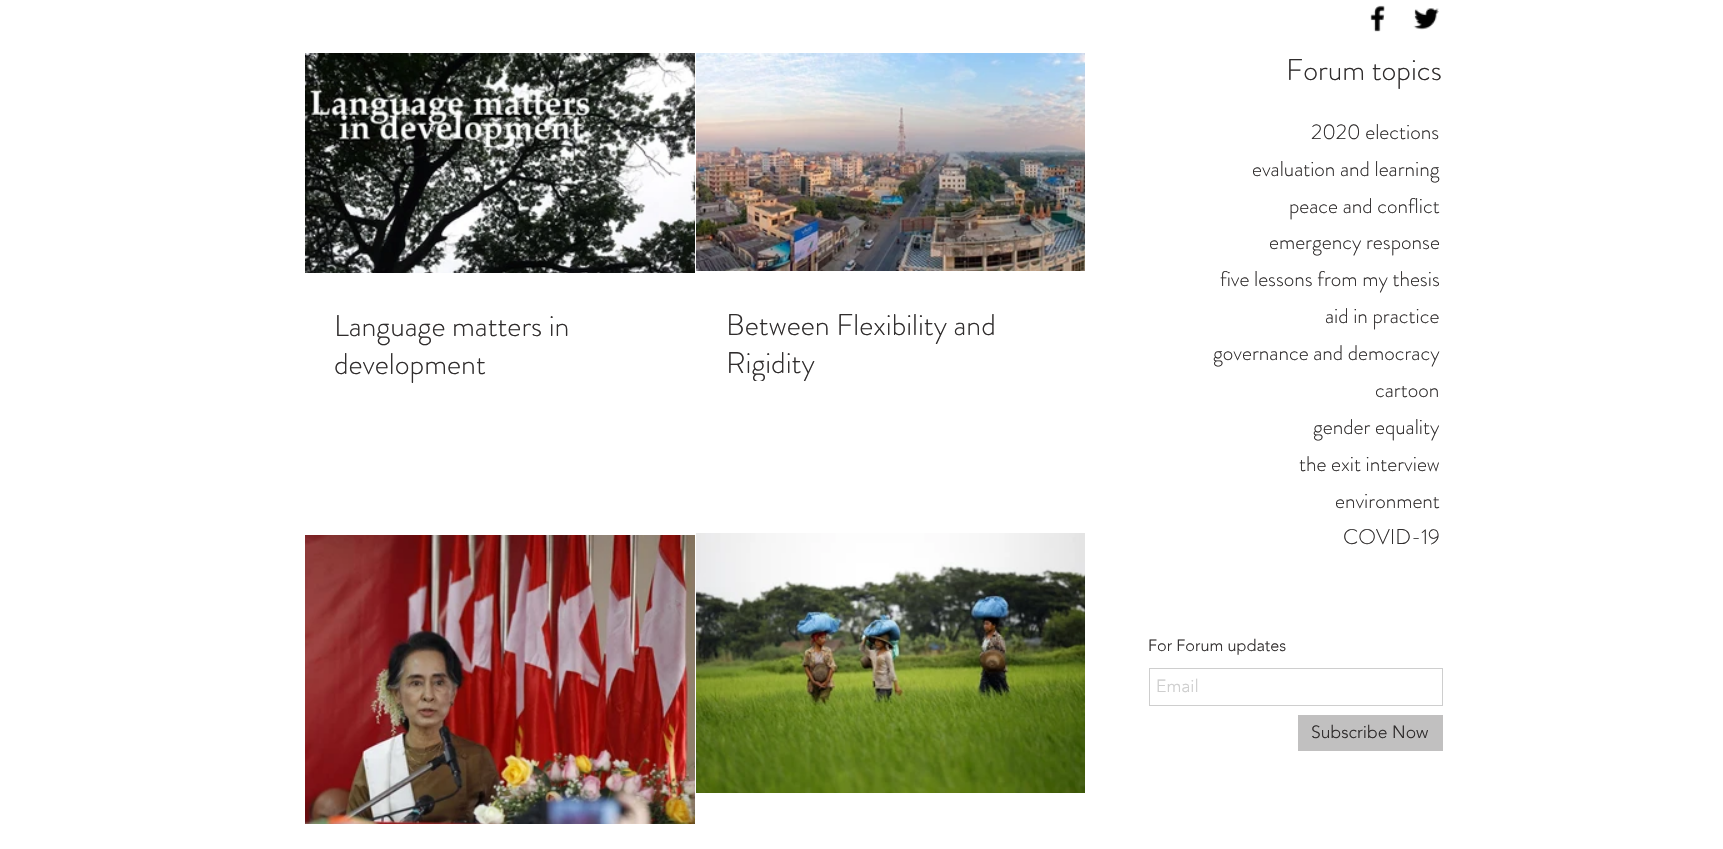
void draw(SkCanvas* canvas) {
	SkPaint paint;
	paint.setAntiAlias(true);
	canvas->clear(0xffffffff);
	canvas->drawImageRect(SkImages::DeferredFromEncodedData(SkData::MakeFromFileName("img1.png")), SkRect::MakeXYWH(1370, 5, 15, 27), SkSamplingOptions());
	canvas->drawImageRect(SkImages::DeferredFromEncodedData(SkData::MakeFromFileName("img2.png")), SkRect::MakeXYWH(1413, 8, 26, 22), SkSamplingOptions());
	SkFont f1(fontMgr->matchFamilyStyle("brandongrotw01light", SkFontStyle(300, SkFontStyle::kNormal_Width, SkFontStyle::kUpright_Slant)), 30);
	f1.setSubpixel(true);
	paint.setColor(0xff302d2d);
	canvas->drawString("Forum topics", 1286, 80, f1, paint);
	canvas->drawImageRect(SkImages::DeferredFromEncodedData(SkData::MakeFromFileName("img3.png")), SkRect::MakeXYWH(305, 53, 390, 220), SkSamplingOptions());
	canvas->drawString("Language matters in", 334, 336, f1, paint);
	canvas->drawString("development", 334, 374, f1, paint);
	canvas->drawImageRect(SkImages::DeferredFromEncodedData(SkData::MakeFromFileName("img4.png")), SkRect::MakeXYWH(696, 53, 389, 218), SkSamplingOptions());
	canvas->drawString("Between Flexibility and", 726, 335, f1, paint);
	canvas->save();
	canvas->clipRect(SkRect::MakeXYWH(726, 306, 329, 75));
	canvas->drawString("Rigidity", 726, 373, f1, paint);
	canvas->restore();
	canvas->drawImageRect(SkImages::DeferredFromEncodedData(SkData::MakeFromFileName("img5.png")), SkRect::MakeXYWH(305, 535, 390, 289), SkSamplingOptions());
	canvas->drawImageRect(SkImages::DeferredFromEncodedData(SkData::MakeFromFileName("img6.png")), SkRect::MakeXYWH(696, 533, 389, 260), SkSamplingOptions());
	SkFont f2(fontMgr->matchFamilyStyle("brandongrotw01light", SkFontStyle(300, SkFontStyle::kNormal_Width, SkFontStyle::kUpright_Slant)), 21.25);
	f2.setSubpixel(true);
	canvas->drawString("2020 elections", 1311, 139, f2, paint);
	canvas->drawString("evaluation and learning", 1252, 176, f2, paint);
	canvas->drawString("peace and conflict", 1289, 213, f2, paint);
	canvas->drawString("emergency response", 1269, 249, f2, paint);
	canvas->drawString("five lessons from my thesis", 1220, 286, f2, paint);
	canvas->drawString("aid in practice", 1325, 323, f2, paint);
	canvas->drawString("governance and democracy", 1213, 360, f2, paint);
	canvas->drawString("cartoon", 1375, 397, f2, paint);
	canvas->drawString("gender equality", 1313, 434, f2, paint);
	canvas->drawString("the exit interview", 1299, 471, f2, paint);
	canvas->drawString("environment", 1335, 508, f2, paint);
	canvas->drawString("COVID-19", 1343, 544, f2, paint);
	SkFont f3(fontMgr->matchFamilyStyle("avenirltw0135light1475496", SkFontStyle(300, SkFontStyle::kNormal_Width, SkFontStyle::kUpright_Slant)), 16.25);
	f3.setSubpixel(true);
	canvas->drawString("For Forum updates", 1148, 651, f3, paint);
	paint.setStroke(true);
	paint.setStrokeWidth(1);
	paint.setColor(0xffcecece);
	canvas->drawRect(SkRect::MakeXYWH(1149.5, 668.5, 293, 37), paint);
	SkFont f4(fontMgr->matchFamilyStyle("avenirltw0135light1475496", SkFontStyle(300, SkFontStyle::kNormal_Width, SkFontStyle::kUpright_Slant)), 17.5);
	f4.setSubpixel(true);
	paint.setStroke(false);
	canvas->drawString("Email", 1156, 692, f4, paint);
	paint.setColor(0xffc1c0c0);
	canvas->drawRect(SkRect::MakeXYWH(1298, 715, 145, 36), paint);
	paint.setColor(0xff302d2d);
	canvas->drawString("Subscribe Now", 1311, 738, f4, paint);
}
